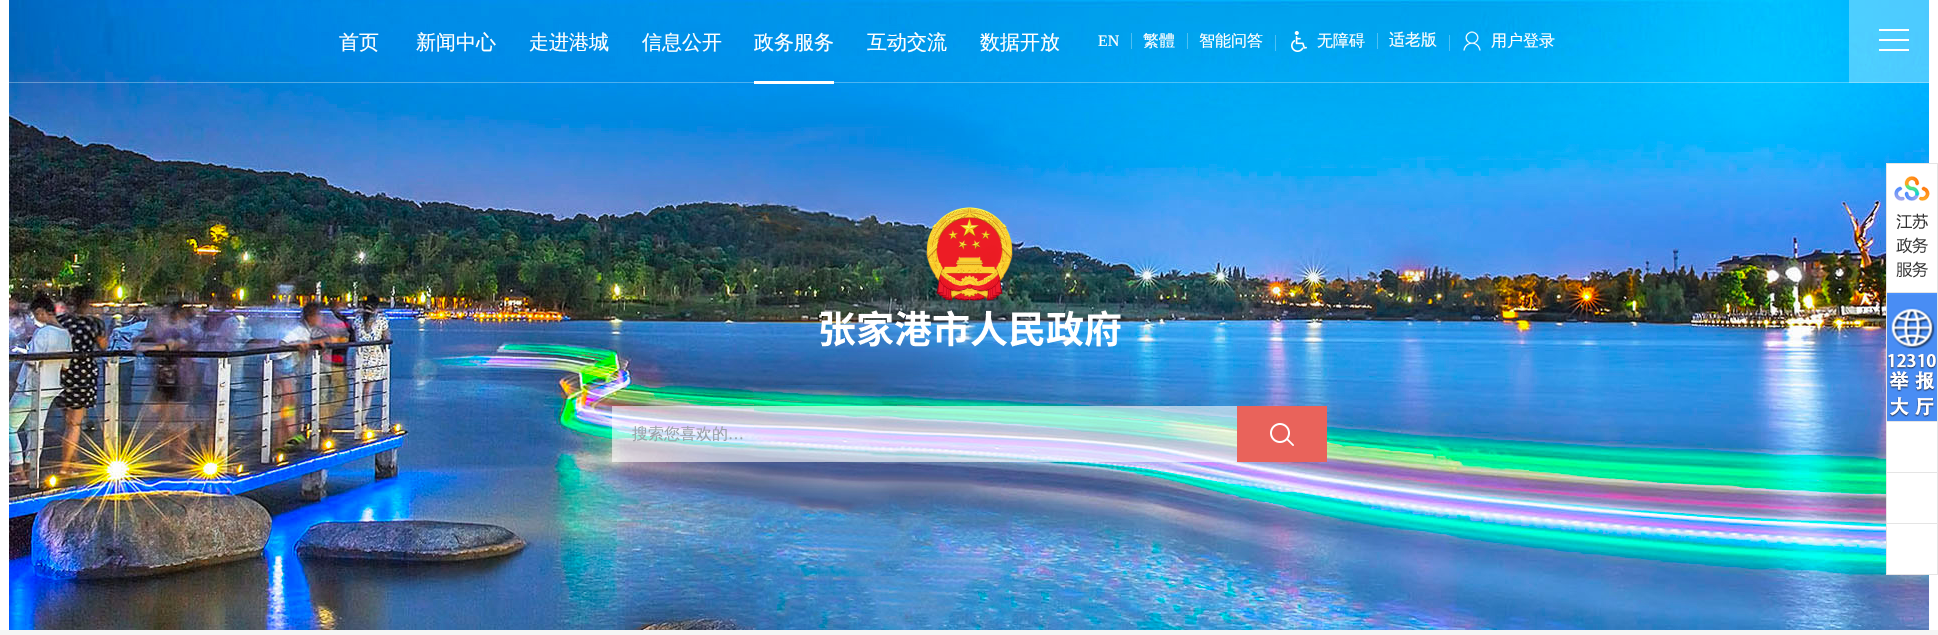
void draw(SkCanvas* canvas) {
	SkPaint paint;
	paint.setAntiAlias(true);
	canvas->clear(0xffffffff);
	canvas->drawImageRect(SkImages::DeferredFromEncodedData(SkData::MakeFromFileName("img1.png")), SkRect::MakeXYWH(9, 0, 1920, 630), SkSamplingOptions());
	SkFont f1(fontMgr->matchFamilyStyle("Liberation Serif", SkFontStyle::Normal()), 16);
	f1.setSubpixel(true);
	paint.setColor(0xffffffff);
	canvas->drawString("EN", 1098, 46, f1, paint);
	paint.setColor(0xff4dbef3);
	canvas->drawRect(SkRect::MakeXYWH(1131, 33, 1, 16), paint);
	SkFont f2(fontMgr->matchFamilyStyle("WenQuanYi Zen Hei", SkFontStyle(500, SkFontStyle::kNormal_Width, SkFontStyle::kUpright_Slant)), 16);
	f2.setSubpixel(true);
	paint.setColor(0xffffffff);
	canvas->drawString("繁體", 1143, 46, f2, paint);
	paint.setColor(0x4dffffff);
	canvas->drawRect(SkRect::MakeXYWH(1187, 33, 1, 16), paint);
	paint.setColor(0xffffffff);
	canvas->drawString("智能问答", 1199, 46, f2, paint);
	paint.setColor(0x4dffffff);
	canvas->drawRect(SkRect::MakeXYWH(1275, 35, 1, 16), paint);
	canvas->drawImageRect(SkImages::DeferredFromEncodedData(SkData::MakeFromFileName("img2.png")), SkRect::MakeXYWH(1291, 31, 16, 21), SkSamplingOptions());
	paint.setColor(0xffffffff);
	canvas->drawString("无障碍", 1317, 46, f2, paint);
	paint.setColor(0x4dffffff);
	canvas->drawRect(SkRect::MakeXYWH(1377, 33, 1, 16), paint);
	paint.setColor(0xffffffff);
	canvas->drawString("适老版", 1389, 45, f2, paint);
	paint.setColor(0x4dffffff);
	canvas->drawRect(SkRect::MakeXYWH(1449, 35, 1, 16), paint);
	canvas->drawImageRect(SkImages::DeferredFromEncodedData(SkData::MakeFromFileName("img3.png")), SkRect::MakeXYWH(1463, 31, 18, 20), SkSamplingOptions());
	paint.setColor(0xffffffff);
	canvas->drawString("用户登录", 1491, 46, f2, paint);
	canvas->drawImageRect(SkImages::DeferredFromEncodedData(SkData::MakeFromFileName("img4.png")), SkRect::MakeXYWH(820, 207, 301, 140), SkSamplingOptions());
	paint.setColor(0x99ffffff);
	canvas->drawRect(SkRect::MakeXYWH(612, 406, 625, 56), paint);
	paint.setColor(0xff9ba2a9);
	canvas->drawString("搜索您喜欢的", 632, 439, f2, paint);
	canvas->drawString("…", 728, 439, f1, paint);
	paint.setColor(0xffe9635b);
	canvas->drawRect(SkRect::MakeXYWH(1237, 406, 90, 56), paint);
	canvas->drawImageRect(SkImages::DeferredFromEncodedData(SkData::MakeFromFileName("img5.png")), SkRect::MakeXYWH(1270, 423, 24, 23), SkSamplingOptions());
	paint.setColor(0x4dffffff);
	canvas->drawRect(SkRect::MakeXYWH(9, 82, 1920, 1), paint);
	canvas->drawRect(SkRect::MakeXYWH(1849, 0, 80, 83), paint);
	paint.setColor(0xffffffff);
	canvas->drawRect(SkRect::MakeXYWH(1879, 29, 30, 2), paint);
	canvas->drawRect(SkRect::MakeXYWH(1879, 39, 30, 2), paint);
	canvas->drawRect(SkRect::MakeXYWH(1879, 49, 30, 2), paint);
	SkFont f3(fontMgr->matchFamilyStyle("WenQuanYi Zen Hei", SkFontStyle(500, SkFontStyle::kNormal_Width, SkFontStyle::kUpright_Slant)), 20);
	f3.setSubpixel(true);
	canvas->drawString("首页", 339, 49, f3, paint);
	canvas->drawString("新闻中心", 416, 49, f3, paint);
	canvas->drawString("走进港城", 529, 49, f3, paint);
	canvas->drawString("信息公开", 642, 49, f3, paint);
	canvas->drawString("政务服务", 754, 49, f3, paint);
	canvas->drawRect(SkRect::MakeXYWH(754, 81, 80, 3), paint);
	canvas->drawString("互动交流", 867, 49, f3, paint);
	canvas->drawString("数据开放", 980, 49, f3, paint);
	canvas->drawRect(SkRect::MakeXYWH(1887, 164, 42, 128), paint);
	paint.setStroke(true);
	paint.setStrokeWidth(1);
	paint.setColor(0xffe5e5e5);
	canvas->drawRect(SkRect::MakeXYWH(1886.5, 163.5, 51, 129), paint);
	canvas->drawImageRect(SkImages::DeferredFromEncodedData(SkData::MakeFromFileName("img6.png")), SkRect::MakeXYWH(1894, 176, 36, 102), SkSamplingOptions());
	canvas->drawRect(SkRect::MakeXYWH(1886.5, 292.5, 51, 129), paint);
	canvas->drawImageRect(SkImages::DeferredFromEncodedData(SkData::MakeFromFileName("img7.png")), SkRect::MakeXYWH(1887, 293, 50, 128), SkSamplingOptions());
	paint.setStroke(false);
	paint.setColor(0xffffffff);
	canvas->drawRect(SkRect::MakeXYWH(1887, 422, 42, 50), paint);
	paint.setStroke(true);
	paint.setColor(0xffe5e5e5);
	canvas->drawRect(SkRect::MakeXYWH(1886.5, 421.5, 51, 51), paint);
	paint.setStroke(false);
	paint.setColor(0xffffffff);
	canvas->drawRect(SkRect::MakeXYWH(1887, 473, 42, 50), paint);
	paint.setStroke(true);
	paint.setColor(0xffe5e5e5);
	canvas->drawRect(SkRect::MakeXYWH(1886.5, 472.5, 51, 51), paint);
	paint.setStroke(false);
	paint.setColor(0xffffffff);
	canvas->drawRect(SkRect::MakeXYWH(1887, 524, 42, 50), paint);
	paint.setStroke(true);
	paint.setColor(0xffe5e5e5);
	canvas->drawRect(SkRect::MakeXYWH(1886.5, 523.5, 51, 51), paint);
	paint.setStroke(false);
	paint.setColor(0xfff5f5f5);
	canvas->drawRect(SkRect::MakeXYWH(0, 630, 1938, 5), paint);
}
